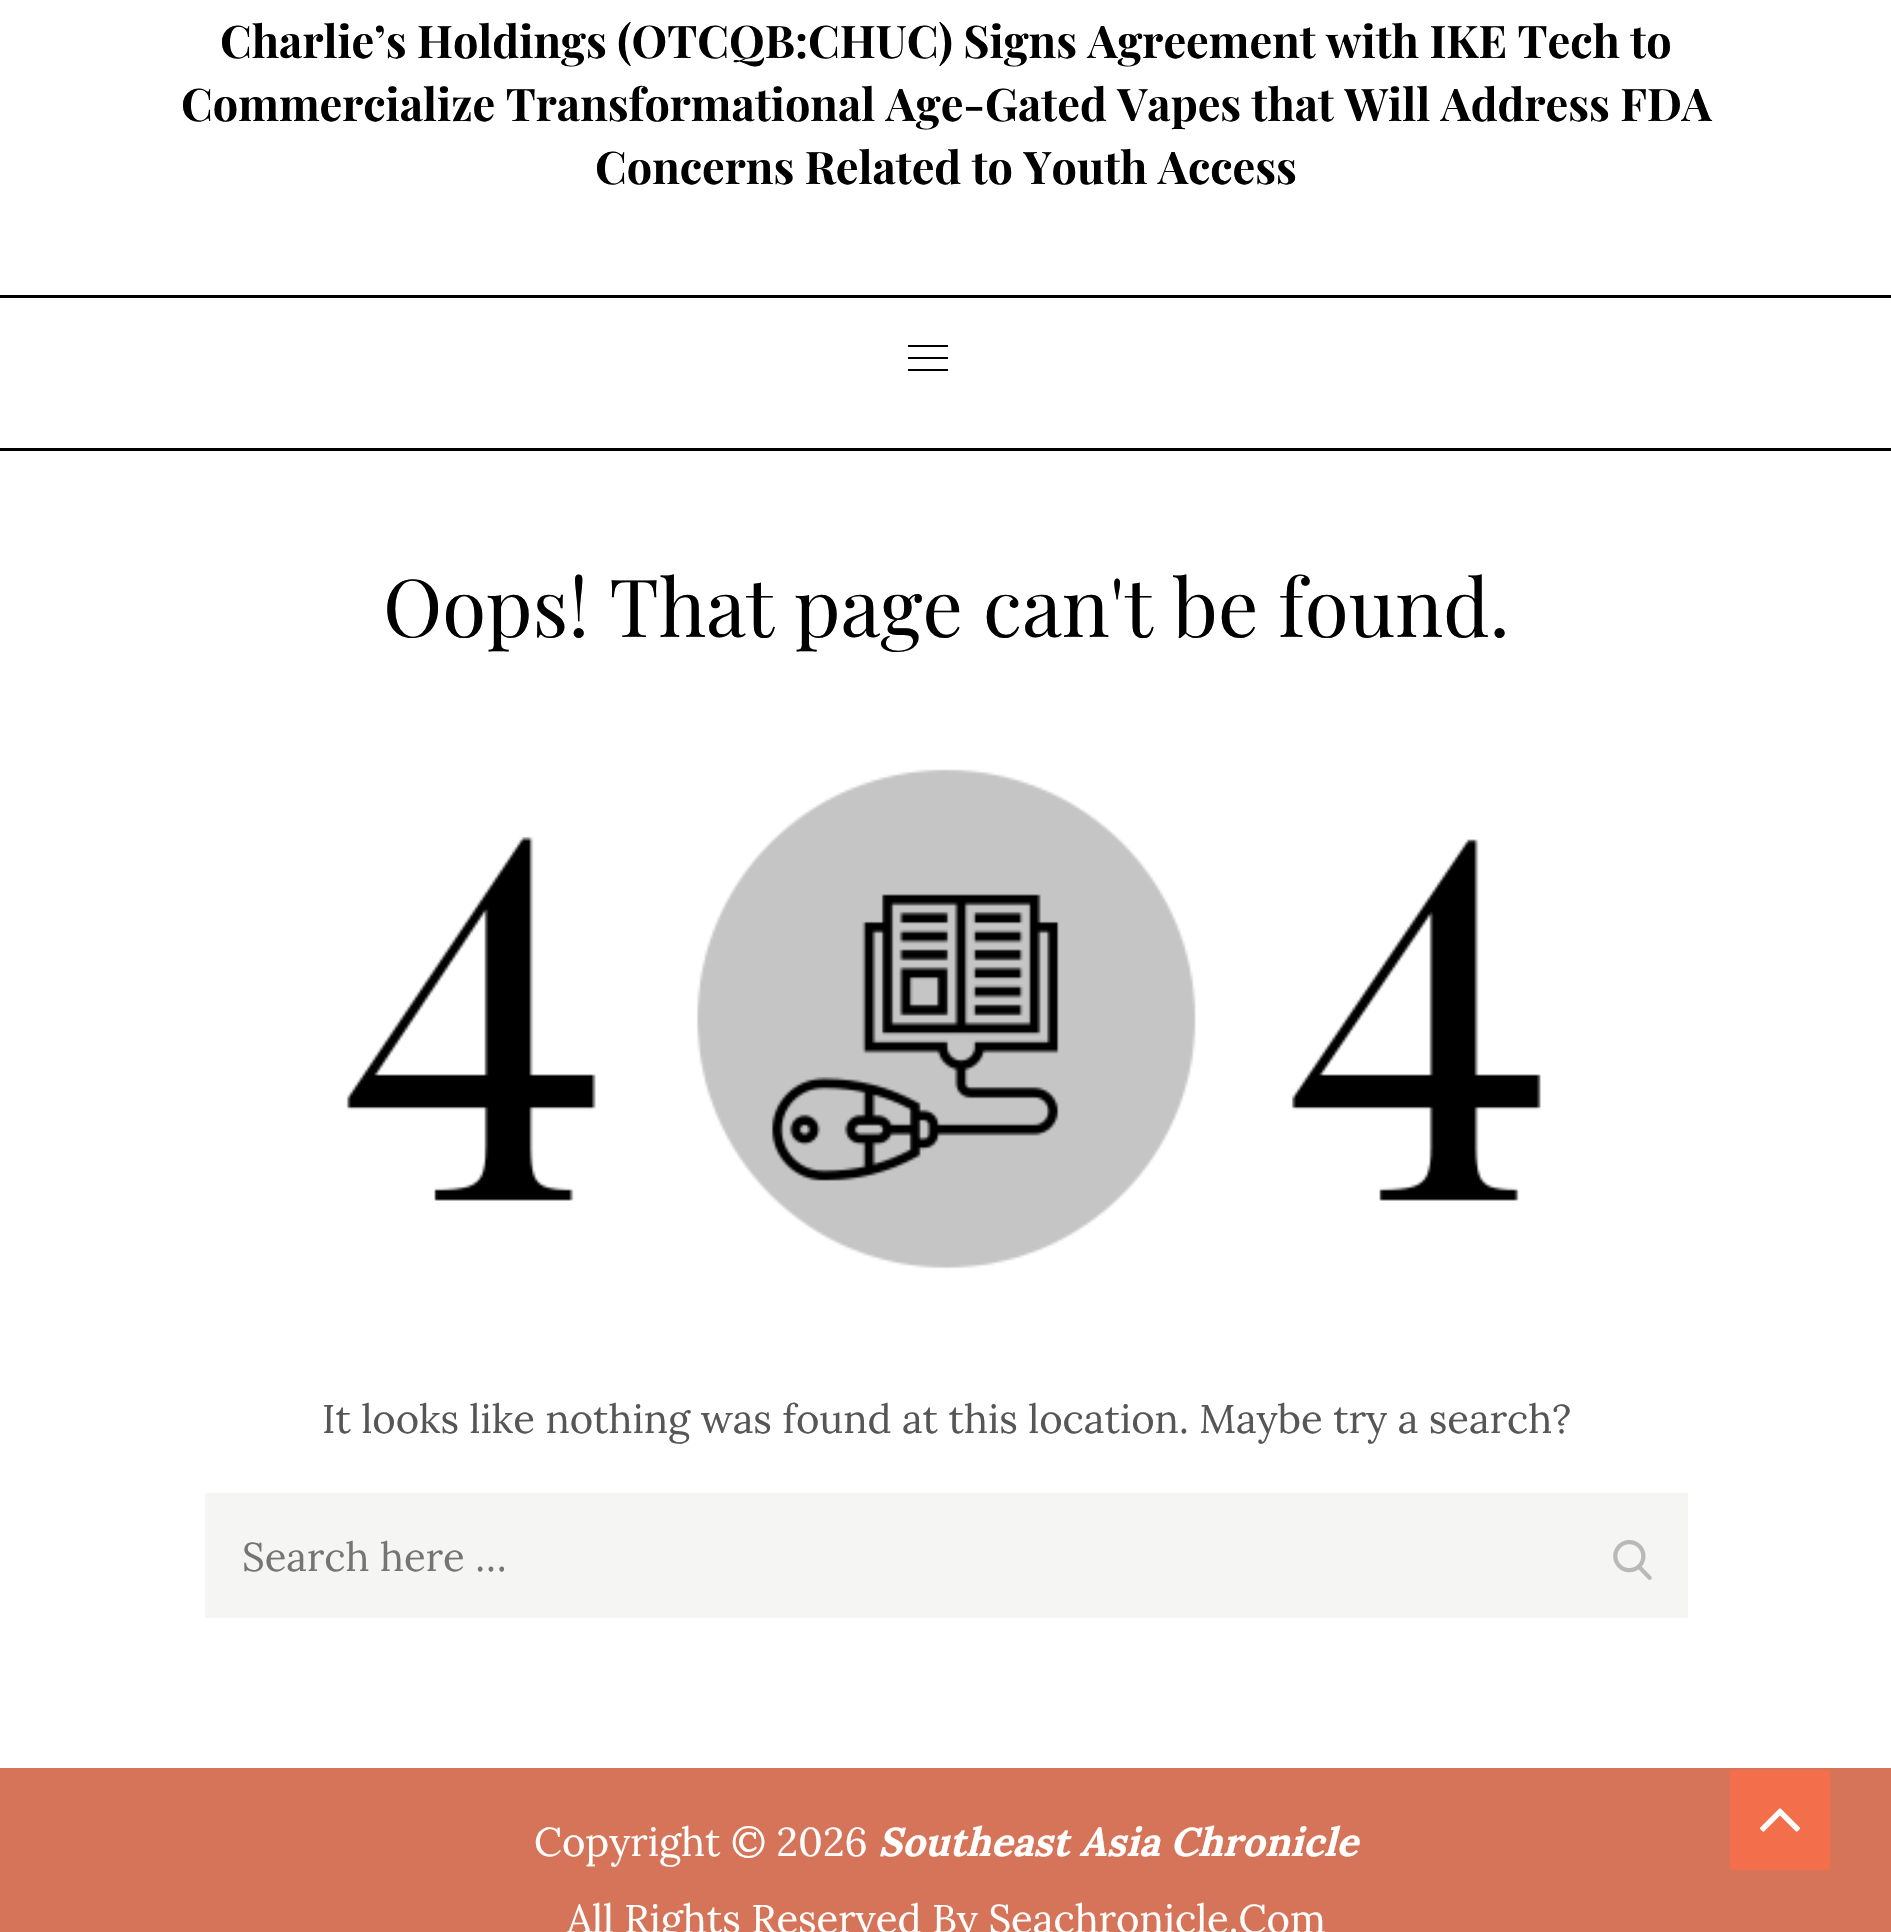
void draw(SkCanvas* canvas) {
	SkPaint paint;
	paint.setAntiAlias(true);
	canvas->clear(0xffffffff);
	SkFont f1(fontMgr->matchFamilyStyle("Playfair Display", SkFontStyle::Bold()), 45);
	f1.setSubpixel(true);
	paint.setColor(0xff000000);
	canvas->drawString("Charlie’s Holdings (OTCQB:CHUC) Signs Agreement with IKE Tech to", 220, 58, f1, paint);
	canvas->drawString("Commercialize Transformational Age-Gated Vapes that Will Address FDA", 181, 121, f1, paint);
	canvas->drawString("Concerns Related to Youth Access", 595, 184, f1, paint);
	canvas->drawRect(SkRect::MakeXYWH(0, 295, 1891, 3), paint);
	canvas->drawRect(SkRect::MakeXYWH(0, 448, 1891, 3), paint);
	canvas->drawRect(SkRect::MakeXYWH(908, 345, 40, 2), paint);
	canvas->drawRect(SkRect::MakeXYWH(908, 357, 40, 2), paint);
	canvas->drawRect(SkRect::MakeXYWH(908, 369, 40, 2), paint);
	SkFont f2(fontMgr->matchFamilyStyle("Playfair Display", SkFontStyle::Normal()), 80);
	f2.setSubpixel(true);
	canvas->drawString("Oops! That page can't be found.", 383, 637, f2, paint);
	canvas->drawImageRect(SkImages::DeferredFromEncodedData(SkData::MakeFromFileName("img1.png")), SkRect::MakeXYWH(346, 769, 1195, 500), SkSamplingOptions());
	SkFont f3(fontMgr->matchFamilyStyle("Lora", SkFontStyle::Normal()), 40);
	f3.setSubpixel(true);
	paint.setColor(0xff565656);
	canvas->drawString("It looks like nothing was found at this location. Maybe try a search?", 322, 1433, f3, paint);
	paint.setColor(0xfff5f5f3);
	canvas->drawRect(SkRect::MakeXYWH(205, 1493, 1483, 125), paint);
	paint.setColor(0xff757575);
	canvas->drawString("Search here …", 242, 1571, f3, paint);
	canvas->drawImageRect(SkImages::DeferredFromEncodedData(SkData::MakeFromFileName("img2.png")), SkRect::MakeXYWH(1613, 1540, 39, 40), SkSamplingOptions());
	paint.setColor(0xffd67459);
	canvas->drawRect(SkRect::MakeXYWH(0, 1768, 1891, 164), paint);
	paint.setColor(0xffffffff);
	canvas->drawString("Copyright © 2026", 534, 1856, f3, paint);
	SkFont f4(fontMgr->matchFamilyStyle("Lora", SkFontStyle::BoldItalic()), 40);
	f4.setSubpixel(true);
	canvas->drawString("Southeast Asia Chronicle", 878, 1856, f4, paint);
	canvas->drawString("All Rights Reserved By Seachronicle.Com", 567, 1933, f3, paint);
	paint.setColor(0xfff36e4b);
	canvas->drawRect(SkRect::MakeXYWH(1730, 1770, 100, 100), paint);
	canvas->drawImageRect(SkImages::DeferredFromEncodedData(SkData::MakeFromFileName("img3.png")), SkRect::MakeXYWH(1760, 1808, 40, 24), SkSamplingOptions());
}
